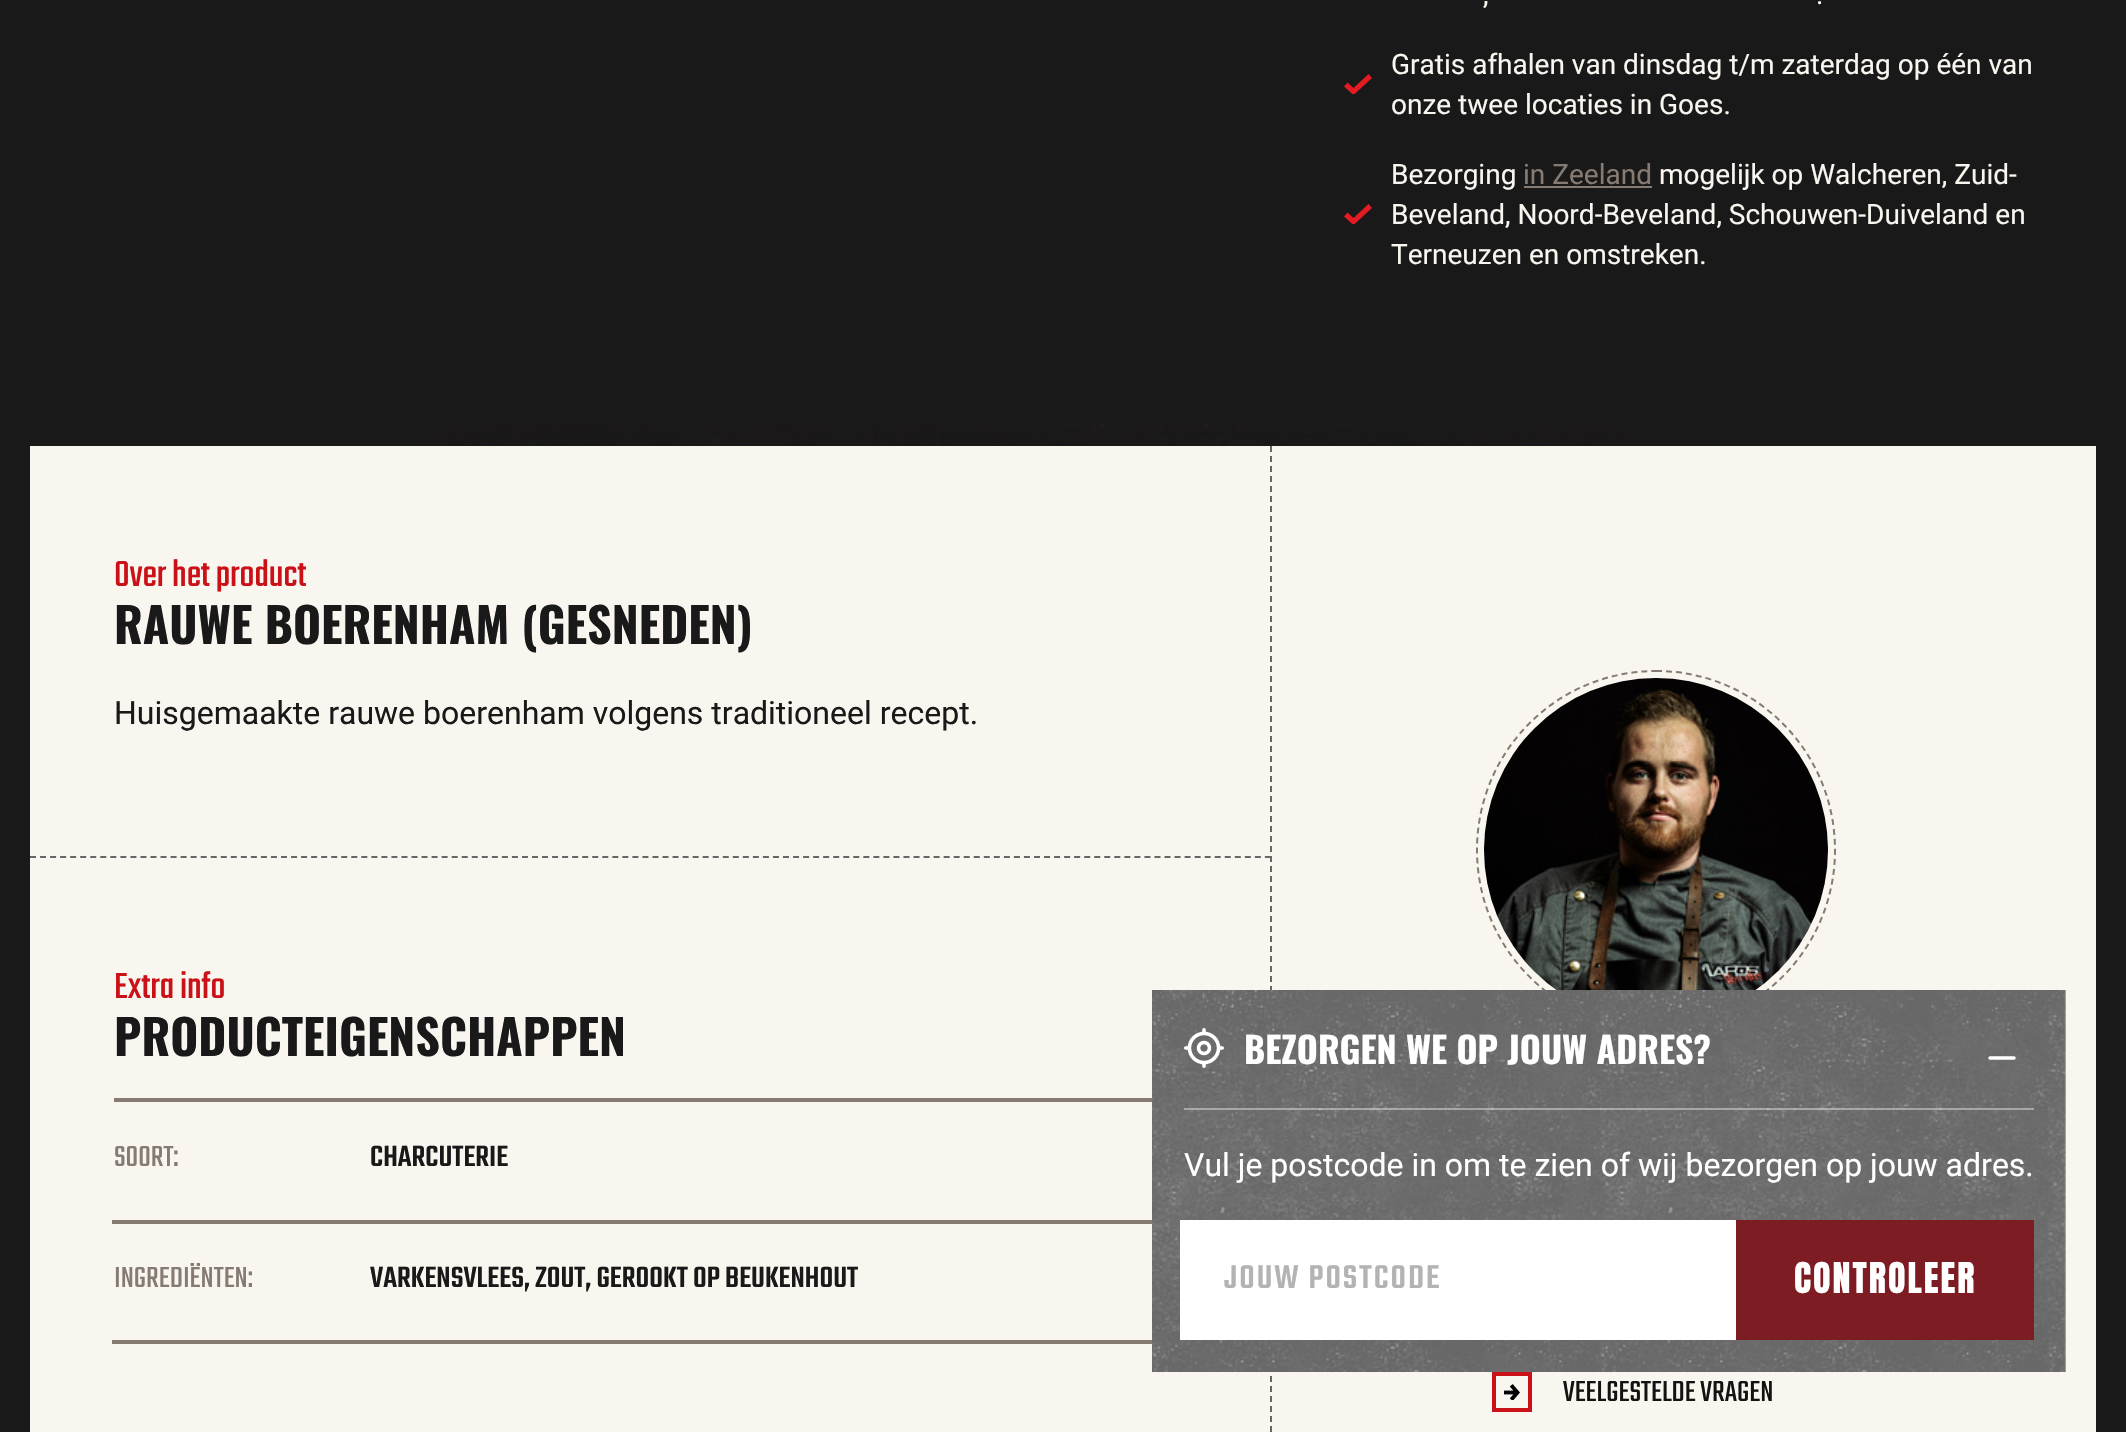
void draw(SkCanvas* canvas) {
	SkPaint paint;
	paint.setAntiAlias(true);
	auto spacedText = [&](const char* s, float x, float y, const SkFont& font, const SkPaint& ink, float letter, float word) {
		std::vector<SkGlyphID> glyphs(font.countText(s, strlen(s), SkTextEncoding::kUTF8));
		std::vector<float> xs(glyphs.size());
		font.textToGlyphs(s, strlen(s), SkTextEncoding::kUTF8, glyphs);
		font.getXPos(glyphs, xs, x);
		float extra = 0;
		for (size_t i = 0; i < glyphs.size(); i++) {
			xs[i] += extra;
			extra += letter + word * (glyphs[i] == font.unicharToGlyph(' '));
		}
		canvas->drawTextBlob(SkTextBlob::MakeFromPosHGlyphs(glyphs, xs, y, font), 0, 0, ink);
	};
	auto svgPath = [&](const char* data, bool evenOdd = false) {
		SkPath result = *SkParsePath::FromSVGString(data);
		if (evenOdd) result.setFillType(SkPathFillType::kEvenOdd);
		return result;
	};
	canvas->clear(0xff1a1919);
	canvas->drawImageRect(SkImages::DeferredFromEncodedData(SkData::MakeFromFileName("img1.png")), SkRect::MakeXYWH(427, 424, 1296, 22), SkSamplingOptions());
	SkFont f1(fontMgr->matchFamilyStyle("Roboto", SkFontStyle::Normal()), 28);
	f1.setSubpixel(true);
	paint.setColor(0xfff9f6f0);
	canvas->drawString(",", 1483, 4, f1, paint);
	canvas->drawString(".", 1816, 4, f1, paint);
	canvas->save();
	canvas->clipRect(SkRect::MakeXYWH(1344, 74, 28, 20));
	paint.setColor(0xffe31b22);
	canvas->drawPath(svgPath("M1353.5 95L1344 86.5L1347.5 82.5L1353.5 88L1368.5 74L1372 78Z"), paint);
	canvas->restore();
	paint.setColor(0xfff9f6f0);
	canvas->drawString("Gratis afhalen van dinsdag t/m zaterdag op één van", 1391, 74, f1, paint);
	canvas->drawString("onze twee locaties in Goes.", 1391, 114, f1, paint);
	canvas->save();
	canvas->clipRect(SkRect::MakeXYWH(1344, 204, 28, 20));
	paint.setColor(0xffe31b22);
	canvas->drawPath(svgPath("M1353.5 225L1344 216.5L1347.5 212.5L1353.5 218L1368.5 204L1372 208Z"), paint);
	canvas->restore();
	paint.setColor(0xfff9f6f0);
	canvas->drawString("Bezorging", 1391, 184, f1, paint);
	paint.setColor(0xff867b72);
	canvas->drawString("in Zeeland", 1523, 184, f1, paint);
	canvas->drawRect(SkRect::MakeXYWH(1524, 186, 128, 2), paint);
	paint.setColor(0xfff9f6f0);
	canvas->drawString("mogelijk op Walcheren, Zuid-", 1659, 184, f1, paint);
	canvas->drawString("Beveland, Noord-Beveland, Schouwen-Duiveland en", 1391, 224, f1, paint);
	canvas->drawString("Terneuzen en omstreken.", 1391, 264, f1, paint);
	canvas->drawRect(SkRect::MakeXYWH(30, 446, 2066, 986), paint);
	SkFont f2(fontMgr->matchFamilyStyle("Teko", SkFontStyle::Normal()), 40);
	f2.setSubpixel(true);
	paint.setColor(0xffca1117);
	canvas->drawString("Over het product", 114, 586, f2, paint);
	SkFont f3(fontMgr->matchFamilyStyle("Oswald", SkFontStyle::Bold()), 48);
	f3.setSubpixel(true);
	paint.setColor(0xff1a1919);
	canvas->drawString("RAUWE BOERENHAM (GESNEDEN)", 114, 644, f3, paint);
	SkFont f4(fontMgr->matchFamilyStyle("Roboto", SkFontStyle::Normal()), 32);
	f4.setSubpixel(true);
	canvas->drawString("Huisgemaakte rauwe boerenham volgens traditioneel recept.", 114, 724, f4, paint);
	paint.setStroke(true);
	paint.setStrokeWidth(2);
	paint.setColor(0xff676666);
	paint.setPathEffect(SkDashPathEffect::Make({{6, 4.04f}}, 0));
	canvas->drawPath(svgPath("M30 857H1270"), paint);
	paint.setPathEffect(nullptr);
	paint.setStroke(false);
	paint.setColor(0xffca1117);
	canvas->drawString("Extra info", 114, 998, f2, paint);
	paint.setColor(0xff1a1919);
	canvas->drawString("PRODUCTEIGENSCHAPPEN", 114, 1056, f3, paint);
	paint.setColor(0xff867b72);
	canvas->drawRect(SkRect::MakeXYWH(114, 1098, 1038, 4), paint);
	SkFont f5(fontMgr->matchFamilyStyle("Teko", SkFontStyle::Normal()), 32);
	f5.setSubpixel(true);
	canvas->drawString("SOORT:", 114, 1166, f5, paint);
	canvas->drawRect(SkRect::MakeXYWH(112, 1220, 1040, 4), paint);
	SkFont f6(fontMgr->matchFamilyStyle("Teko", SkFontStyle(500, SkFontStyle::kNormal_Width, SkFontStyle::kUpright_Slant)), 32);
	f6.setSubpixel(true);
	paint.setColor(0xff1a1919);
	canvas->drawString("CHARCUTERIE", 370, 1166, f6, paint);
	paint.setColor(0xff867b72);
	canvas->drawString("INGREDIËNTEN:", 114, 1287, f5, paint);
	canvas->drawRect(SkRect::MakeXYWH(112, 1340, 1040, 4), paint);
	paint.setColor(0xff1a1919);
	canvas->drawString("VARKENSVLEES, ZOUT, GEROOKT OP BEUKENHOUT", 370, 1287, f6, paint);
	paint.setStroke(true);
	paint.setColor(0xff676666);
	paint.setPathEffect(SkDashPathEffect::Make({{6, 4}}, 0));
	canvas->drawPath(svgPath("M1271 446V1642"), paint);
	paint.setPathEffect(nullptr);
	paint.setColor(0xff867b72);
	paint.setPathEffect(SkDashPathEffect::Make({{6, 4}}, 0));
	canvas->drawPath(svgPath("M1656 671C1755 671 1835 751 1835 850C1835 949 1755 1029 1656 1029C1557 1029 1477 949 1477 850C1477 751 1557 671 1656 671Z"), paint);
	paint.setPathEffect(nullptr);
	canvas->drawImageRect(SkImages::DeferredFromEncodedData(SkData::MakeFromFileName("img2.png")), SkRect::MakeXYWH(1484, 678, 344, 312), SkSamplingOptions());
	canvas->drawImageRect(SkImages::DeferredFromEncodedData(SkData::MakeFromFileName("img3.png")), SkRect::MakeXYWH(1504, 1384, 16, 16), SkSamplingOptions());
	paint.setStrokeWidth(4);
	paint.setColor(0xffca1117);
	canvas->drawRect(SkRect::MakeXYWH(1494, 1374, 36, 36), paint);
	paint.setStroke(false);
	paint.setColor(0xff141212);
	canvas->drawString("VEELGESTELDE VRAGEN", 1563, 1401, f5, paint);
	canvas->drawImageRect(SkImages::DeferredFromEncodedData(SkData::MakeFromFileName("img4.png")), SkRect::MakeXYWH(1152, 990, 914, 382), SkSamplingOptions());
	paint.setColor(0x66ffffff);
	canvas->drawRect(SkRect::MakeXYWH(1184, 1108, 850, 2), paint);
	canvas->drawImageRect(SkImages::DeferredFromEncodedData(SkData::MakeFromFileName("img5.png")), SkRect::MakeXYWH(1184, 1028, 40, 40), SkSamplingOptions());
	SkFont f7(fontMgr->matchFamilyStyle("Oswald", SkFontStyle::Bold()), 36);
	f7.setSubpixel(true);
	paint.setColor(0xffffffff);
	canvas->drawString("BEZORGEN WE OP JOUW ADRES?", 1244, 1064, f7, paint);
	paint.setStroke(true);
	paint.setStrokeWidth(3.5);
	paint.setStrokeCap(SkPaint::kRound_Cap);
	paint.setStrokeJoin(SkPaint::kRound_Join);
	canvas->drawPath(svgPath("M1990 1058H2014"), paint);
	paint.setStroke(false);
	canvas->drawString("Vul je postcode in om te zien of wij bezorgen op jouw adres.", 1184, 1176, f4, paint);
	paint.setStroke(true);
	paint.setStrokeWidth(4);
	paint.setStrokeCap(SkPaint::kButt_Cap);
	paint.setStrokeJoin(SkPaint::kMiter_Join);
	canvas->drawRect(SkRect::MakeXYWH(1182, 1222, 556, 116), paint);
	paint.setStroke(false);
	canvas->drawRect(SkRect::MakeXYWH(1184, 1224, 552, 112), paint);
	SkFont f8(fontMgr->matchFamilyStyle("Teko", SkFontStyle(500, SkFontStyle::kNormal_Width, SkFontStyle::kUpright_Slant)), 36);
	f8.setSubpixel(true);
	paint.setColor(0xffb3b3b3);
	spacedText("JOUW POSTCODE", 1224, 1288, f8, paint, 2, 0);
	paint.setColor(0xff7d1c22);
	canvas->drawRect(SkRect::MakeXYWH(1736, 1220, 298, 120), paint);
	SkFont f9(fontMgr->matchFamilyStyle("Anton", SkFontStyle::Normal()), 36);
	f9.setSubpixel(true);
	paint.setColor(0xffffffff);
	spacedText("CONTROLEER", 1794, 1293, f9, paint, 2, 0);
}
